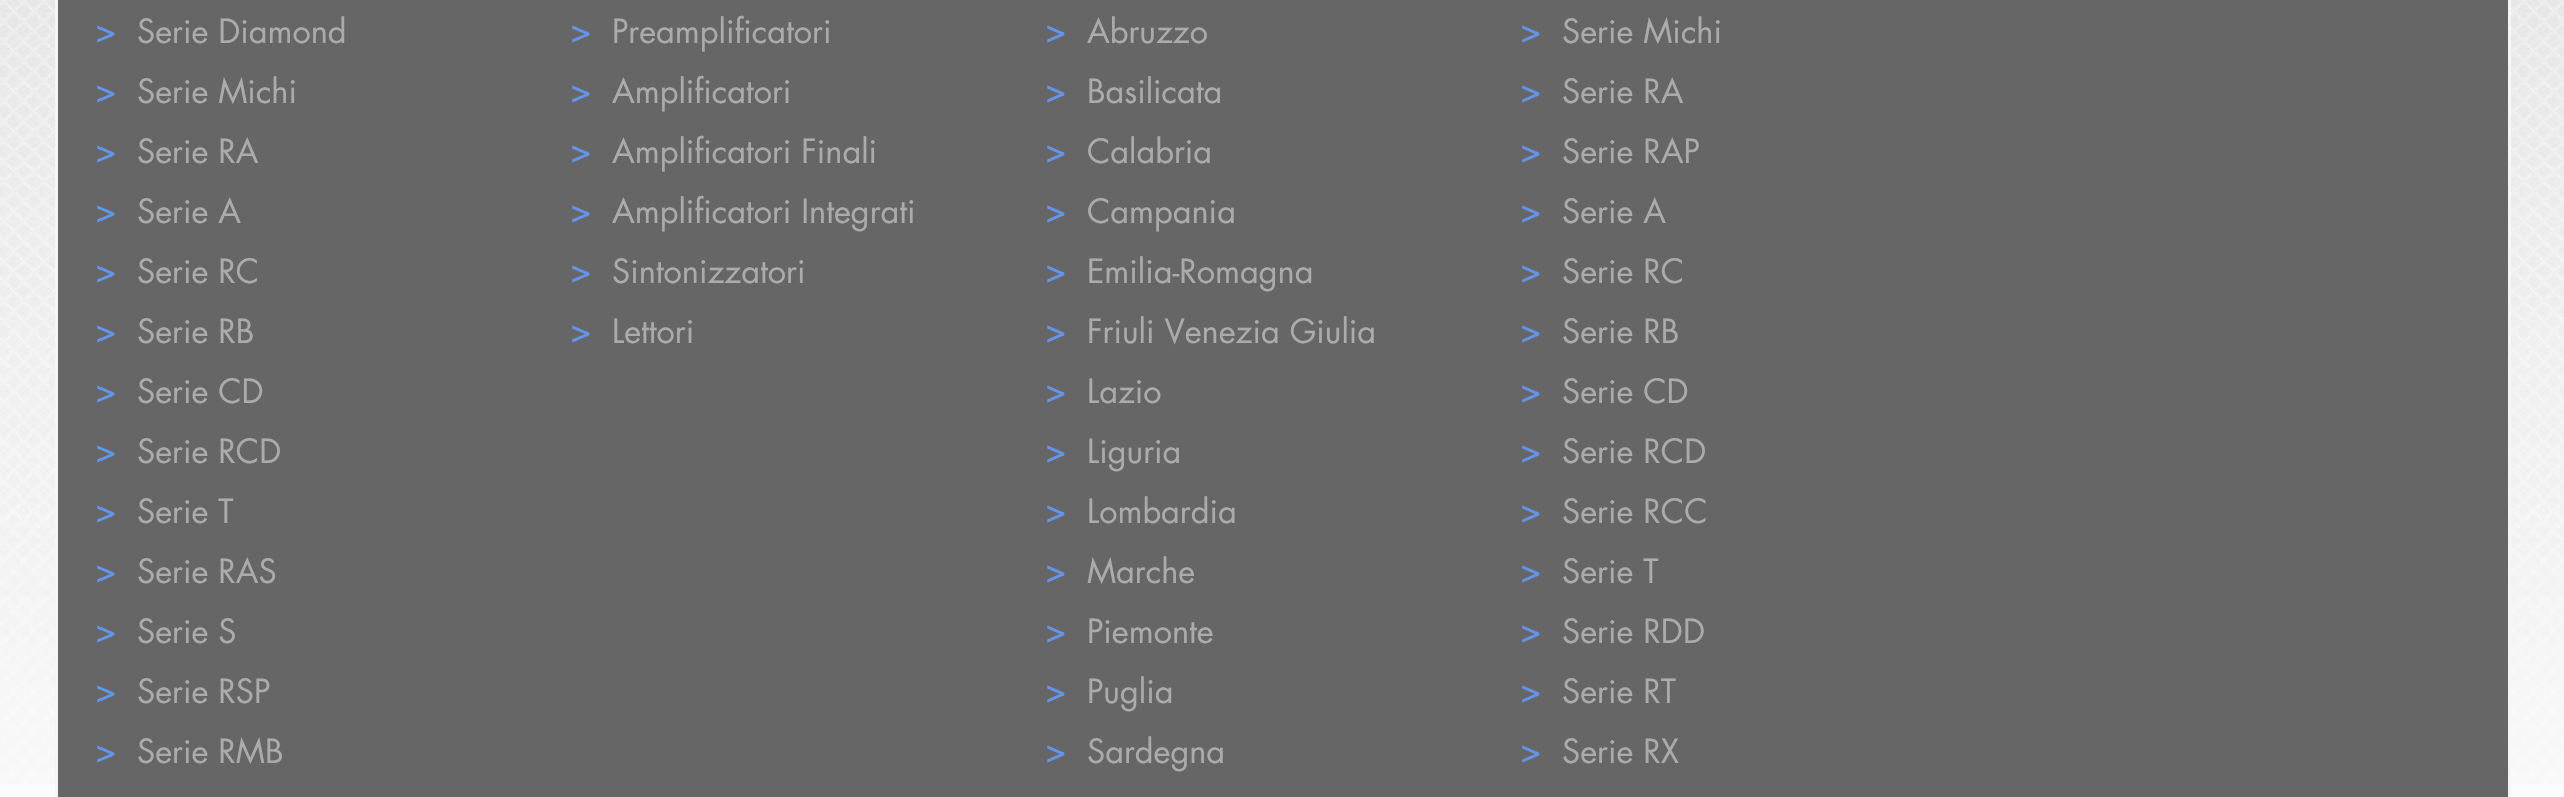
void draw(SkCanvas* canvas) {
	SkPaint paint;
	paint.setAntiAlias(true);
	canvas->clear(0xfffcfcfc);
	canvas->drawImageRect(SkImages::DeferredFromEncodedData(SkData::MakeFromFileName("img1.png")), SkRect::MakeXYWH(0, 0, 2564, 784), SkSamplingOptions());
	paint.setColor(0xfff5f5f5);
	canvas->drawRect(SkRect::MakeXYWH(2508, 0, 3, 797), paint);
	canvas->drawRect(SkRect::MakeXYWH(55, 0, 3, 797), paint);
	paint.setColor(0xff666666);
	canvas->drawRect(SkRect::MakeXYWH(58, 0, 2450, 797), paint);
	SkFont f1(fontMgr->matchFamilyStyle("Futura", SkFontStyle::Normal()), 35);
	f1.setSubpixel(true);
	paint.setColor(0xff6495ed);
	canvas->drawString(">", 95, 43, f1, paint);
	SkFont f2(fontMgr->matchFamilyStyle("Futura", SkFontStyle::Normal()), 32.5);
	f2.setSubpixel(true);
	paint.setColor(0xffababab);
	canvas->drawString("Serie Diamond", 137, 43, f2, paint);
	paint.setColor(0xff6495ed);
	canvas->drawString(">", 95, 103, f1, paint);
	paint.setColor(0xffababab);
	canvas->drawString("Serie Michi", 137, 103, f2, paint);
	paint.setColor(0xff6495ed);
	canvas->drawString(">", 95, 163, f1, paint);
	paint.setColor(0xffababab);
	canvas->drawString("Serie RA", 137, 163, f2, paint);
	paint.setColor(0xff6495ed);
	canvas->drawString(">", 95, 223, f1, paint);
	paint.setColor(0xffababab);
	canvas->drawString("Serie A", 137, 223, f2, paint);
	paint.setColor(0xff6495ed);
	canvas->drawString(">", 95, 283, f1, paint);
	paint.setColor(0xffababab);
	canvas->drawString("Serie RC", 137, 283, f2, paint);
	paint.setColor(0xff6495ed);
	canvas->drawString(">", 95, 343, f1, paint);
	paint.setColor(0xffababab);
	canvas->drawString("Serie RB", 137, 343, f2, paint);
	paint.setColor(0xff6495ed);
	canvas->drawString(">", 95, 403, f1, paint);
	paint.setColor(0xffababab);
	canvas->drawString("Serie CD", 137, 403, f2, paint);
	paint.setColor(0xff6495ed);
	canvas->drawString(">", 95, 463, f1, paint);
	paint.setColor(0xffababab);
	canvas->drawString("Serie RCD", 137, 463, f2, paint);
	paint.setColor(0xff6495ed);
	canvas->drawString(">", 95, 523, f1, paint);
	paint.setColor(0xffababab);
	canvas->drawString("Serie T", 137, 523, f2, paint);
	paint.setColor(0xff6495ed);
	canvas->drawString(">", 95, 583, f1, paint);
	paint.setColor(0xffababab);
	canvas->drawString("Serie RAS", 137, 583, f2, paint);
	paint.setColor(0xff6495ed);
	canvas->drawString(">", 95, 643, f1, paint);
	paint.setColor(0xffababab);
	canvas->drawString("Serie S", 137, 643, f2, paint);
	paint.setColor(0xff6495ed);
	canvas->drawString(">", 95, 703, f1, paint);
	paint.setColor(0xffababab);
	canvas->drawString("Serie RSP", 137, 703, f2, paint);
	paint.setColor(0xff6495ed);
	canvas->drawString(">", 95, 763, f1, paint);
	paint.setColor(0xffababab);
	canvas->drawString("Serie RMB", 137, 763, f2, paint);
	paint.setColor(0xff6495ed);
	canvas->drawString(">", 570, 43, f1, paint);
	paint.setColor(0xffababab);
	canvas->drawString("Preamplificatori", 612, 43, f2, paint);
	paint.setColor(0xff6495ed);
	canvas->drawString(">", 570, 103, f1, paint);
	paint.setColor(0xffababab);
	canvas->drawString("Amplificatori", 612, 103, f2, paint);
	paint.setColor(0xff6495ed);
	canvas->drawString(">", 570, 163, f1, paint);
	paint.setColor(0xffababab);
	canvas->drawString("Amplificatori Finali", 612, 163, f2, paint);
	paint.setColor(0xff6495ed);
	canvas->drawString(">", 570, 223, f1, paint);
	paint.setColor(0xffababab);
	canvas->drawString("Amplificatori Integrati", 612, 223, f2, paint);
	paint.setColor(0xff6495ed);
	canvas->drawString(">", 570, 283, f1, paint);
	paint.setColor(0xffababab);
	canvas->drawString("Sintonizzatori", 612, 283, f2, paint);
	paint.setColor(0xff6495ed);
	canvas->drawString(">", 570, 343, f1, paint);
	paint.setColor(0xffababab);
	canvas->drawString("Lettori", 612, 343, f2, paint);
	paint.setColor(0xff6495ed);
	canvas->drawString(">", 1045, 43, f1, paint);
	paint.setColor(0xffababab);
	canvas->drawString("Abruzzo", 1087, 43, f2, paint);
	paint.setColor(0xff6495ed);
	canvas->drawString(">", 1045, 103, f1, paint);
	paint.setColor(0xffababab);
	canvas->drawString("Basilicata", 1087, 103, f2, paint);
	paint.setColor(0xff6495ed);
	canvas->drawString(">", 1045, 163, f1, paint);
	paint.setColor(0xffababab);
	canvas->drawString("Calabria", 1087, 163, f2, paint);
	paint.setColor(0xff6495ed);
	canvas->drawString(">", 1045, 223, f1, paint);
	paint.setColor(0xffababab);
	canvas->drawString("Campania", 1087, 223, f2, paint);
	paint.setColor(0xff6495ed);
	canvas->drawString(">", 1045, 283, f1, paint);
	paint.setColor(0xffababab);
	canvas->drawString("Emilia-Romagna", 1087, 283, f2, paint);
	paint.setColor(0xff6495ed);
	canvas->drawString(">", 1045, 343, f1, paint);
	paint.setColor(0xffababab);
	canvas->drawString("Friuli Venezia Giulia", 1087, 343, f2, paint);
	paint.setColor(0xff6495ed);
	canvas->drawString(">", 1045, 403, f1, paint);
	paint.setColor(0xffababab);
	canvas->drawString("Lazio", 1087, 403, f2, paint);
	paint.setColor(0xff6495ed);
	canvas->drawString(">", 1045, 463, f1, paint);
	paint.setColor(0xffababab);
	canvas->drawString("Liguria", 1087, 463, f2, paint);
	paint.setColor(0xff6495ed);
	canvas->drawString(">", 1045, 523, f1, paint);
	paint.setColor(0xffababab);
	canvas->drawString("Lombardia", 1087, 523, f2, paint);
	paint.setColor(0xff6495ed);
	canvas->drawString(">", 1045, 583, f1, paint);
	paint.setColor(0xffababab);
	canvas->drawString("Marche", 1087, 583, f2, paint);
	paint.setColor(0xff6495ed);
	canvas->drawString(">", 1045, 643, f1, paint);
	paint.setColor(0xffababab);
	canvas->drawString("Piemonte", 1087, 643, f2, paint);
	paint.setColor(0xff6495ed);
	canvas->drawString(">", 1045, 703, f1, paint);
	paint.setColor(0xffababab);
	canvas->drawString("Puglia", 1087, 703, f2, paint);
	paint.setColor(0xff6495ed);
	canvas->drawString(">", 1045, 763, f1, paint);
	paint.setColor(0xffababab);
	canvas->drawString("Sardegna", 1087, 763, f2, paint);
	paint.setColor(0xff6495ed);
	canvas->drawString(">", 1520, 43, f1, paint);
	paint.setColor(0xffababab);
	canvas->drawString("Serie Michi", 1562, 43, f2, paint);
	paint.setColor(0xff6495ed);
	canvas->drawString(">", 1520, 103, f1, paint);
	paint.setColor(0xffababab);
	canvas->drawString("Serie RA", 1562, 103, f2, paint);
	paint.setColor(0xff6495ed);
	canvas->drawString(">", 1520, 163, f1, paint);
	paint.setColor(0xffababab);
	canvas->drawString("Serie RAP", 1562, 163, f2, paint);
	paint.setColor(0xff6495ed);
	canvas->drawString(">", 1520, 223, f1, paint);
	paint.setColor(0xffababab);
	canvas->drawString("Serie A", 1562, 223, f2, paint);
	paint.setColor(0xff6495ed);
	canvas->drawString(">", 1520, 283, f1, paint);
	paint.setColor(0xffababab);
	canvas->drawString("Serie RC", 1562, 283, f2, paint);
	paint.setColor(0xff6495ed);
	canvas->drawString(">", 1520, 343, f1, paint);
	paint.setColor(0xffababab);
	canvas->drawString("Serie RB", 1562, 343, f2, paint);
	paint.setColor(0xff6495ed);
	canvas->drawString(">", 1520, 403, f1, paint);
	paint.setColor(0xffababab);
	canvas->drawString("Serie CD", 1562, 403, f2, paint);
	paint.setColor(0xff6495ed);
	canvas->drawString(">", 1520, 463, f1, paint);
	paint.setColor(0xffababab);
	canvas->drawString("Serie RCD", 1562, 463, f2, paint);
	paint.setColor(0xff6495ed);
	canvas->drawString(">", 1520, 523, f1, paint);
	paint.setColor(0xffababab);
	canvas->drawString("Serie RCC", 1562, 523, f2, paint);
	paint.setColor(0xff6495ed);
	canvas->drawString(">", 1520, 583, f1, paint);
	paint.setColor(0xffababab);
	canvas->drawString("Serie T", 1562, 583, f2, paint);
	paint.setColor(0xff6495ed);
	canvas->drawString(">", 1520, 643, f1, paint);
	paint.setColor(0xffababab);
	canvas->drawString("Serie RDD", 1562, 643, f2, paint);
	paint.setColor(0xff6495ed);
	canvas->drawString(">", 1520, 703, f1, paint);
	paint.setColor(0xffababab);
	canvas->drawString("Serie RT", 1562, 703, f2, paint);
	paint.setColor(0xff6495ed);
	canvas->drawString(">", 1520, 763, f1, paint);
	paint.setColor(0xffababab);
	canvas->drawString("Serie RX", 1562, 763, f2, paint);
}
